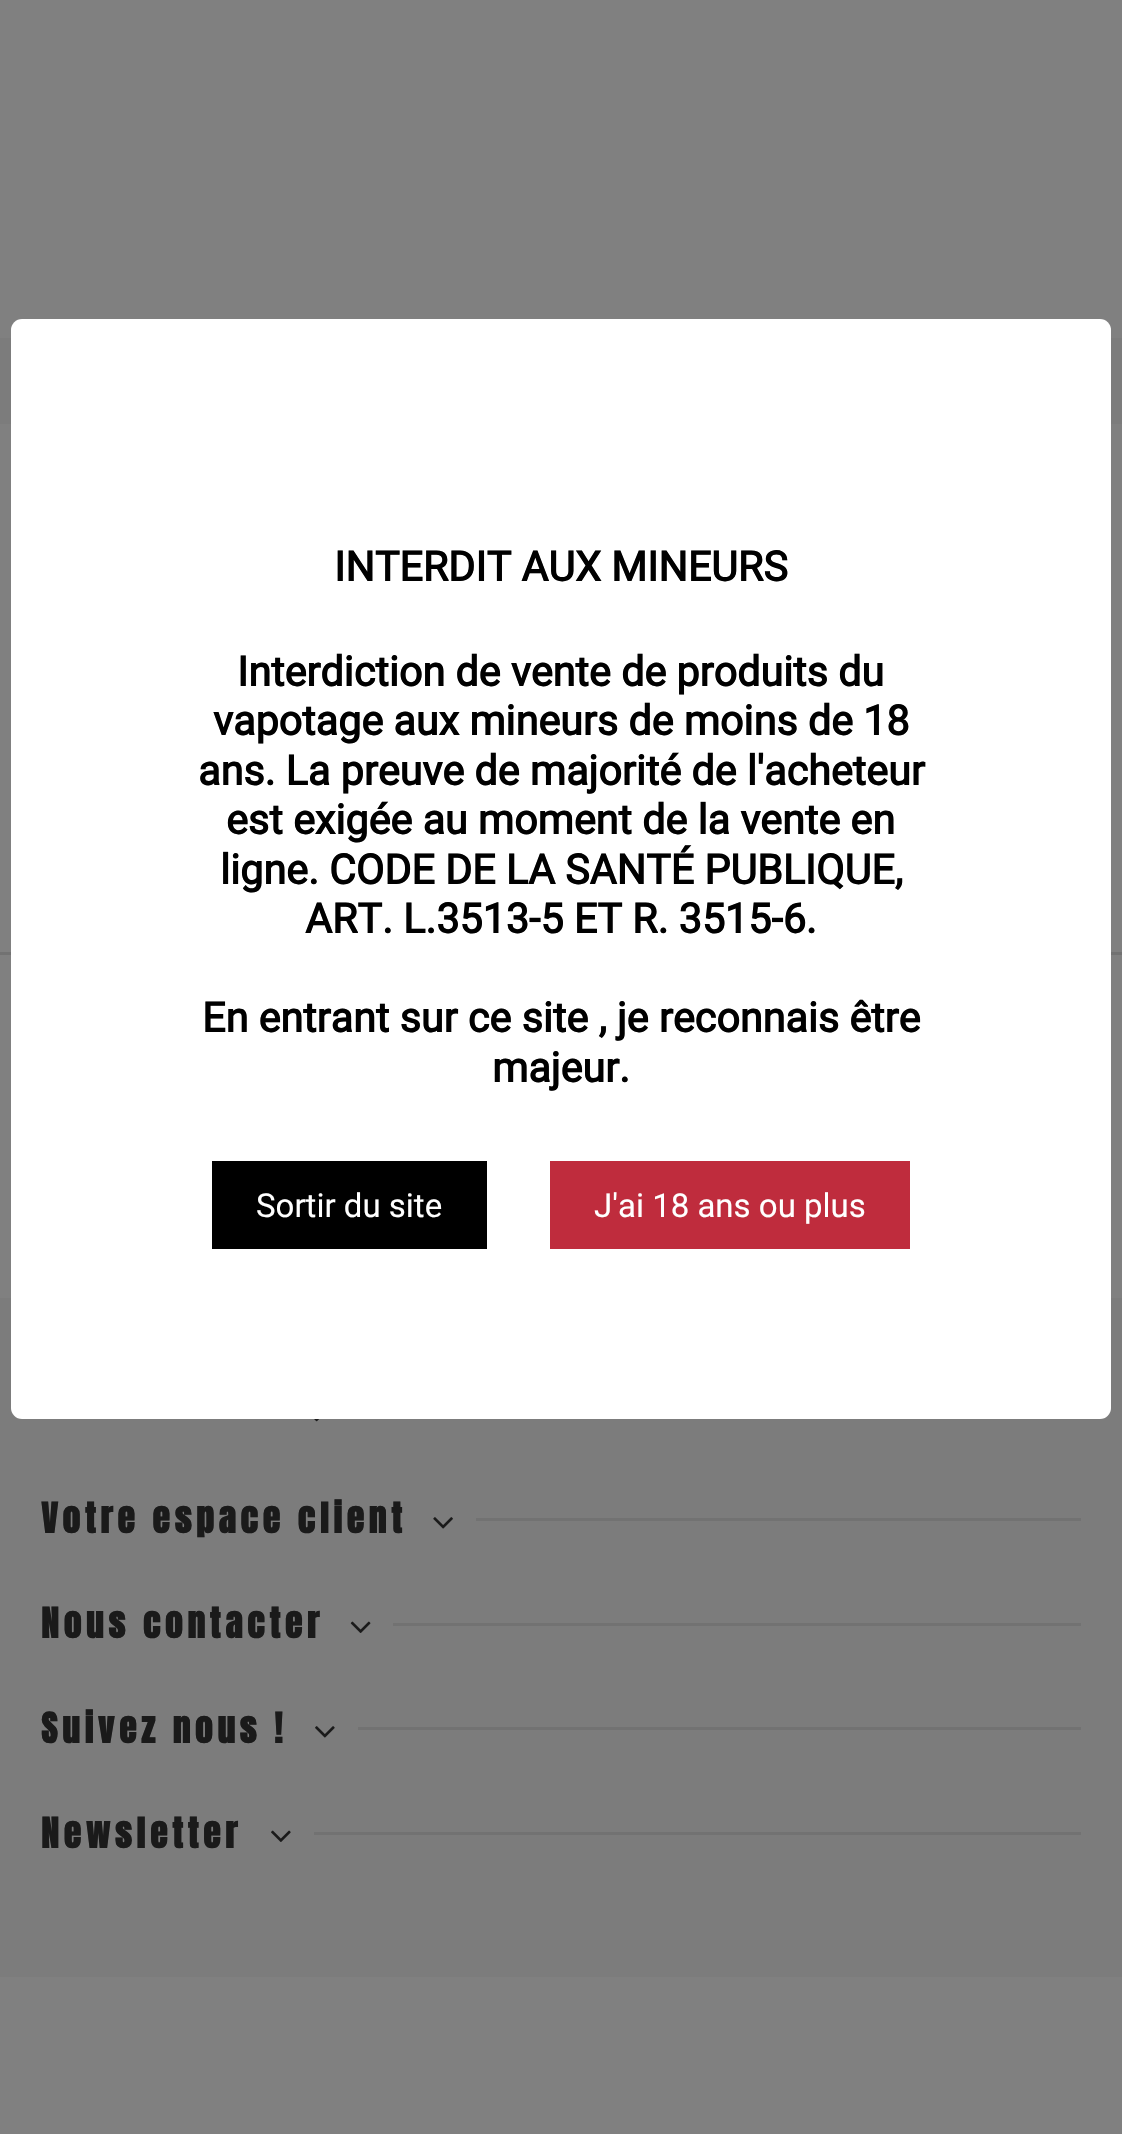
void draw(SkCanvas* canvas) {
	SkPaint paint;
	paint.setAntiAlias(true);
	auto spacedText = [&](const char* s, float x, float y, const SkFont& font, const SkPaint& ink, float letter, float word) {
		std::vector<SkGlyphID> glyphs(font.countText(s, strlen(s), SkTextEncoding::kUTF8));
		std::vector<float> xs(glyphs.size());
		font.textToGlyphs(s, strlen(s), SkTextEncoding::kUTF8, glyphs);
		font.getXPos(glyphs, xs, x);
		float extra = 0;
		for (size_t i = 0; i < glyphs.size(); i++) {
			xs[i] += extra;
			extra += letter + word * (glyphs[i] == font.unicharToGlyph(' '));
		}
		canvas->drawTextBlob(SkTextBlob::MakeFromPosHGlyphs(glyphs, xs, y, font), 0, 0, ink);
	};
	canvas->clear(0xff808080);
	paint.setColor(0xff7c7c7c);
	canvas->drawRect(SkRect::MakeXYWH(0, 338, 1122, 86), paint);
	paint.setColor(0xff727272);
	canvas->drawRect(SkRect::MakeXYWH(0, 952, 1122, 3), paint);
	paint.setColor(0xff7c7c7c);
	canvas->drawRect(SkRect::MakeXYWH(0, 1298, 1122, 679), paint);
	paint.setColor(0xffffffff);
	canvas->drawRoundRect(SkRect::MakeXYWH(11, 319, 1100, 1100), 11, 11, paint);
	SkFont f1(fontMgr->matchFamilyStyle("Roboto", SkFontStyle::Bold()), 41.25);
	f1.setSubpixel(true);
	paint.setColor(0xff000000);
	canvas->drawString("INTERDIT AUX MINEURS", 334, 581, f1, paint);
	canvas->drawString("Interdiction de vente de produits du", 237, 686, f1, paint);
	canvas->drawString("vapotage aux mineurs de moins de 18", 213, 735, f1, paint);
	canvas->drawString("ans. La preuve de majorité de l'acheteur", 198, 785, f1, paint);
	canvas->drawString("est exigée au moment de la vente en", 226, 834, f1, paint);
	canvas->drawString("ligne. CODE DE LA SANTÉ PUBLIQUE,", 220, 884, f1, paint);
	canvas->drawString("ART. L.3513-5 ET R. 3515-6.", 305, 933, f1, paint);
	canvas->drawString("En entrant sur ce site , je reconnais être", 202, 1032, f1, paint);
	canvas->drawString("majeur.", 492, 1082, f1, paint);
	canvas->drawRect(SkRect::MakeXYWH(212, 1161, 275, 88), paint);
	SkFont f2(fontMgr->matchFamilyStyle("Roboto", SkFontStyle::Normal()), 33);
	f2.setSubpixel(true);
	paint.setColor(0xffffffff);
	canvas->drawString("Sortir du site", 256, 1217, f2, paint);
	paint.setColor(0xffbf2c3d);
	canvas->drawRect(SkRect::MakeXYWH(550, 1161, 360, 88), paint);
	paint.setColor(0xffffffff);
	canvas->drawString("J'ai 18 ans ou plus", 594, 1217, f2, paint);
	canvas->drawImageRect(SkImages::DeferredFromEncodedData(SkData::MakeFromFileName("img1.png")), SkRect::MakeXYWH(314, 1419, 5, 3), SkSamplingOptions());
	SkFont f3(fontMgr->matchFamilyStyle("Anton", SkFontStyle::Bold()), 35.4);
	f3.setSubpixel(true);
	paint.setColor(0xff1a1a1a);
	spacedText("Votre espace client", 41, 1533, f3, paint, 4.75, 0);
	canvas->drawImageRect(SkImages::DeferredFromEncodedData(SkData::MakeFromFileName("img2.png")), SkRect::MakeXYWH(433, 1517, 20, 12), SkSamplingOptions());
	paint.setColor(0xff727272);
	canvas->drawRect(SkRect::MakeXYWH(476, 1518, 605, 3), paint);
	paint.setColor(0xff1a1a1a);
	spacedText("Nous contacter", 41, 1638, f3, paint, 4.75, 0);
	canvas->drawImageRect(SkImages::DeferredFromEncodedData(SkData::MakeFromFileName("img3.png")), SkRect::MakeXYWH(350, 1621, 21, 12), SkSamplingOptions());
	paint.setColor(0xff727272);
	canvas->drawRect(SkRect::MakeXYWH(393, 1623, 688, 3), paint);
	paint.setColor(0xff1a1a1a);
	spacedText("Suivez nous !", 41, 1743, f3, paint, 4.75, 0);
	canvas->drawImageRect(SkImages::DeferredFromEncodedData(SkData::MakeFromFileName("img4.png")), SkRect::MakeXYWH(315, 1726, 20, 12), SkSamplingOptions());
	paint.setColor(0xff727272);
	canvas->drawRect(SkRect::MakeXYWH(358, 1727, 723, 3), paint);
	paint.setColor(0xff1a1a1a);
	spacedText("Newsletter", 41, 1848, f3, paint, 4.75, 0);
	canvas->drawImageRect(SkImages::DeferredFromEncodedData(SkData::MakeFromFileName("img5.png")), SkRect::MakeXYWH(271, 1830, 20, 12), SkSamplingOptions());
	paint.setColor(0xff727272);
	canvas->drawRect(SkRect::MakeXYWH(314, 1832, 767, 3), paint);
}
